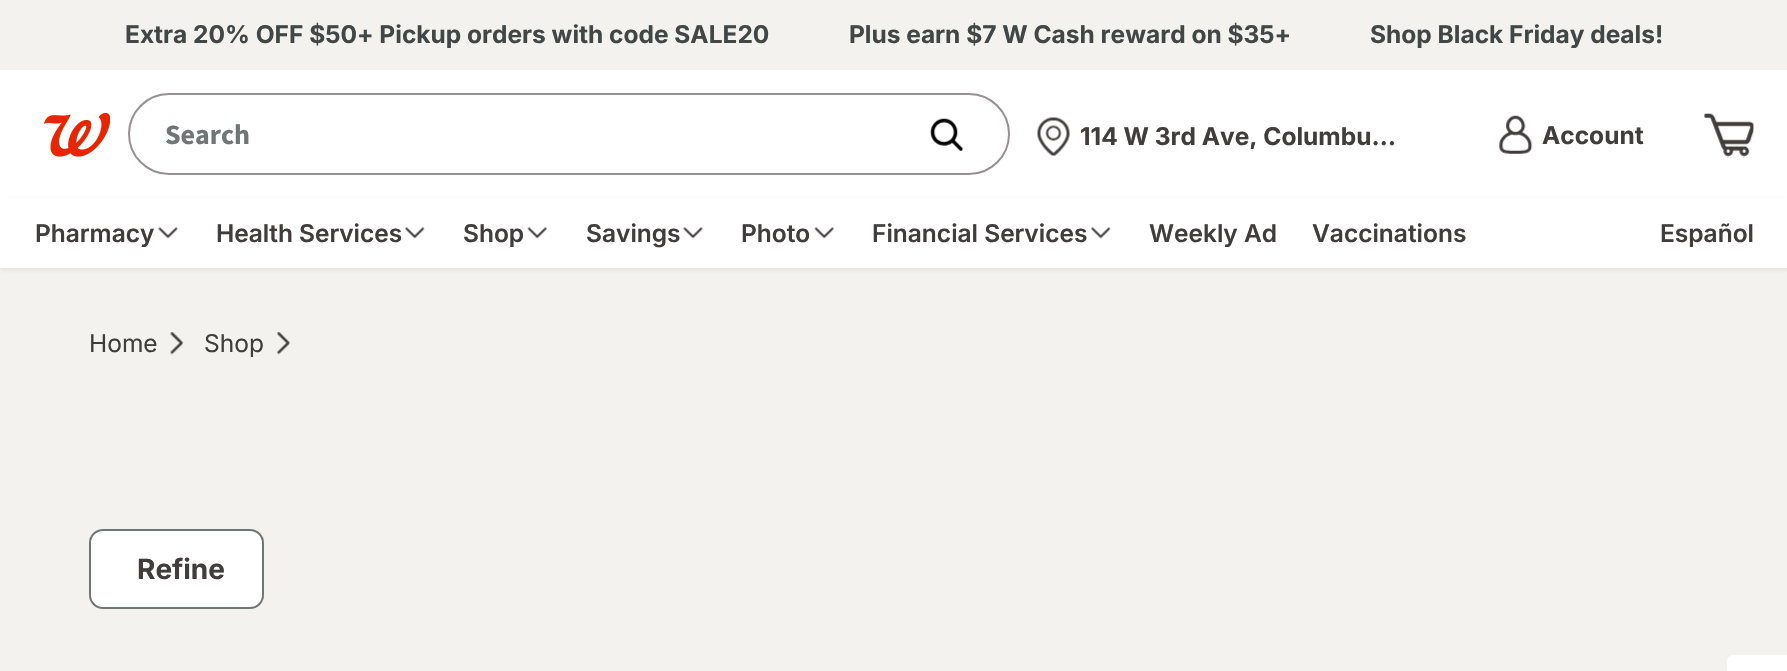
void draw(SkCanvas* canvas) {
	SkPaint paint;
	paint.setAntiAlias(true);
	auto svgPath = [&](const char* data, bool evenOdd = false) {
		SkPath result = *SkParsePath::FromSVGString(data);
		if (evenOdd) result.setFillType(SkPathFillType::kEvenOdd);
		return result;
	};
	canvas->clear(0xffffffff);
	paint.setColor(0xfff4f2ef);
	canvas->drawRect(SkRect::MakeXYWH(0, 0, 1787, 70), paint);
	SkFont f1(fontMgr->matchFamilyStyle("Inter", SkFontStyle::Bold()), 24.5);
	f1.setSubpixel(true);
	paint.setColor(0xff414646);
	canvas->drawString("Extra 20% OFF $50+ Pickup orders with code SALE20", 125, 43, f1, paint);
	canvas->drawString("Plus earn $7 W Cash reward on $35+", 849, 43, f1, paint);
	canvas->drawString("Shop Black Friday deals!", 1370, 43, f1, paint);
	canvas->drawImageRect(SkImages::DeferredFromEncodedData(SkData::MakeFromFileName("img1.png")), SkRect::MakeXYWH(44, 112, 66, 45), SkSamplingOptions());
	paint.setStroke(true);
	paint.setStrokeWidth(2);
	paint.setColor(0xff989090);
	canvas->drawRoundRect(SkRect::MakeXYWH(129, 94, 880, 80), 40, 40, paint);
	SkFont f2(fontMgr->matchFamilyStyle("Source Sans Pro", SkFontStyle::Bold()), 28);
	f2.setSubpixel(true);
	paint.setStroke(false);
	paint.setColor(0xff707575);
	canvas->drawString("Search", 165, 144, f2, paint);
	canvas->drawImageRect(SkImages::DeferredFromEncodedData(SkData::MakeFromFileName("img2.png")), SkRect::MakeXYWH(930, 118, 34, 33), SkSamplingOptions());
	canvas->drawImageRect(SkImages::DeferredFromEncodedData(SkData::MakeFromFileName("img3.png")), SkRect::MakeXYWH(1037, 117, 33, 39), SkSamplingOptions());
	canvas->save();
	canvas->clipRect(SkRect::MakeXYWH(1080, 123, 322, 26));
	paint.setColor(0xff413d3c);
	canvas->drawString("114 W 3rd Ave, Columbu…", 1080, 145, f1, paint);
	canvas->restore();
	canvas->drawImageRect(SkImages::DeferredFromEncodedData(SkData::MakeFromFileName("img4.png")), SkRect::MakeXYWH(1499, 115, 34, 39), SkSamplingOptions());
	canvas->drawString("Account", 1542, 144, f1, paint);
	canvas->drawImageRect(SkImages::DeferredFromEncodedData(SkData::MakeFromFileName("img5.png")), SkRect::MakeXYWH(1704, 113, 50, 44), SkSamplingOptions());
	paint.setColor(0xfff4f2ef);
	canvas->drawRect(SkRect::MakeXYWH(0, 268, 1787, 403), paint);
	paint.setColor(0x80cfcfcf);
	paint.setMaskFilter(SkMaskFilter::MakeBlur(kNormal_SkBlurStyle, 2));
	canvas->drawRect(SkRect::MakeXYWH(0, 200, 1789, 70), paint);
	paint.setMaskFilter(nullptr);
	paint.setColor(0xffffffff);
	canvas->drawRect(SkRect::MakeXYWH(0, 198, 1787, 70), paint);
	SkFont f3(fontMgr->matchFamilyStyle("Inter", SkFontStyle(600, SkFontStyle::kNormal_Width, SkFontStyle::kUpright_Slant)), 24.5);
	f3.setSubpixel(true);
	paint.setColor(0xff413d3c);
	canvas->drawString("Pharmacy", 35, 242, f3, paint);
	canvas->drawImageRect(SkImages::DeferredFromEncodedData(SkData::MakeFromFileName("img6.png")), SkRect::MakeXYWH(158, 227, 20, 12), SkSamplingOptions());
	canvas->drawString("Health Services", 216, 242, f3, paint);
	canvas->drawImageRect(SkImages::DeferredFromEncodedData(SkData::MakeFromFileName("img7.png")), SkRect::MakeXYWH(405, 227, 20, 12), SkSamplingOptions());
	canvas->drawString("Shop", 463, 242, f3, paint);
	canvas->drawImageRect(SkImages::DeferredFromEncodedData(SkData::MakeFromFileName("img8.png")), SkRect::MakeXYWH(527, 227, 20, 12), SkSamplingOptions());
	canvas->drawString("Savings", 586, 242, f3, paint);
	canvas->drawImageRect(SkImages::DeferredFromEncodedData(SkData::MakeFromFileName("img6.png")), SkRect::MakeXYWH(683, 227, 20, 12), SkSamplingOptions());
	canvas->drawString("Photo", 741, 242, f3, paint);
	canvas->drawImageRect(SkImages::DeferredFromEncodedData(SkData::MakeFromFileName("img8.png")), SkRect::MakeXYWH(814, 227, 20, 12), SkSamplingOptions());
	canvas->drawString("Financial Services", 872, 242, f3, paint);
	canvas->drawImageRect(SkImages::DeferredFromEncodedData(SkData::MakeFromFileName("img9.png")), SkRect::MakeXYWH(1091, 227, 20, 12), SkSamplingOptions());
	canvas->drawString("Weekly Ad", 1149, 242, f3, paint);
	canvas->drawString("Vaccinations", 1312, 242, f3, paint);
	canvas->drawString("Español", 1660, 242, f3, paint);
	SkFont f4(fontMgr->matchFamilyStyle("Inter", SkFontStyle::Normal()), 24.5);
	f4.setSubpixel(true);
	canvas->drawString("Home", 89, 352, f4, paint);
	canvas->drawImageRect(SkImages::DeferredFromEncodedData(SkData::MakeFromFileName("img10.png")), SkRect::MakeXYWH(170, 332, 14, 23), SkSamplingOptions());
	canvas->drawString("Shop", 204, 352, f4, paint);
	canvas->drawImageRect(SkImages::DeferredFromEncodedData(SkData::MakeFromFileName("img11.png")), SkRect::MakeXYWH(277, 332, 13, 23), SkSamplingOptions());
	paint.setColor(0xffffffff);
	canvas->drawRoundRect(SkRect::MakeXYWH(90, 530, 173, 78), 13, 13, paint);
	paint.setStroke(true);
	paint.setColor(0xff707575);
	canvas->drawRoundRect(SkRect::MakeXYWH(90, 530, 173, 78), 13, 13, paint);
	SkFont f5(fontMgr->matchFamilyStyle("Inter", SkFontStyle::Bold()), 28);
	f5.setSubpixel(true);
	paint.setStroke(false);
	paint.setColor(0xff413d3c);
	canvas->drawString("Refine", 137, 579, f5, paint);
	paint.setColor(0xffffffff);
	canvas->drawPath(svgPath("M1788 655V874H1732C1730 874 1727 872 1727 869V661C1727 658 1730 655 1732 655Z"), paint);
}
